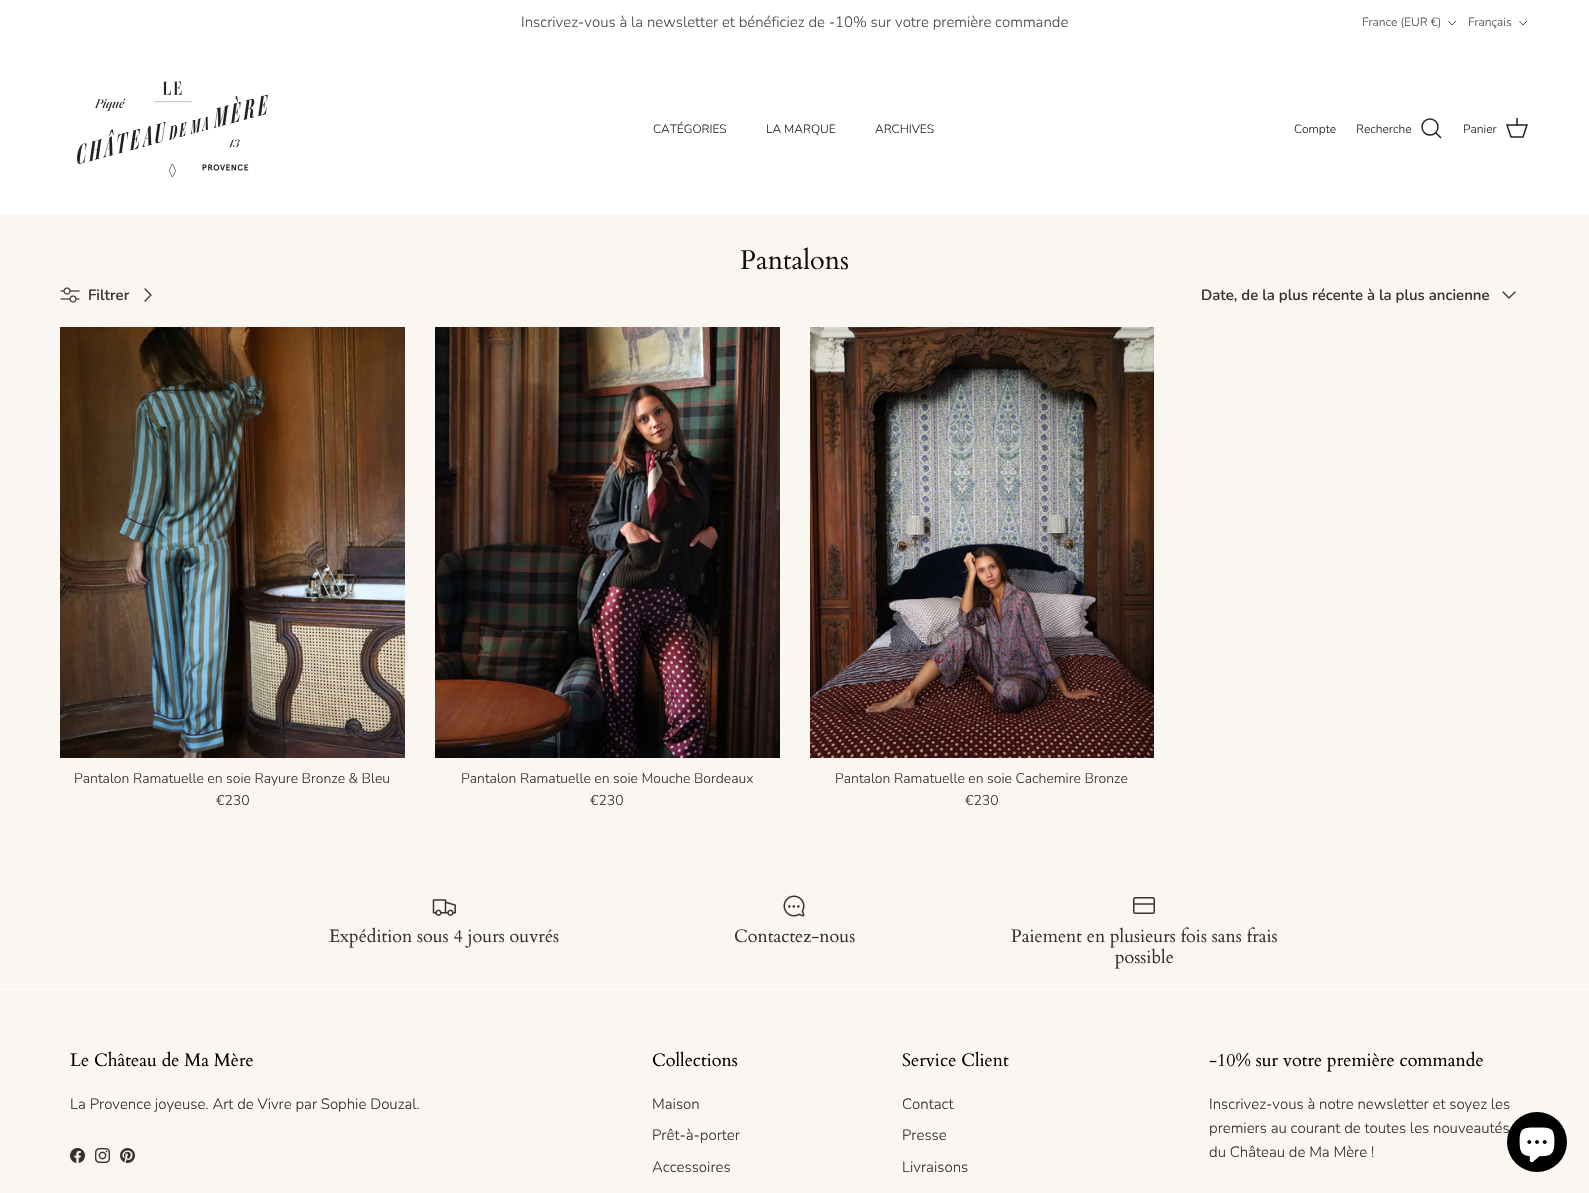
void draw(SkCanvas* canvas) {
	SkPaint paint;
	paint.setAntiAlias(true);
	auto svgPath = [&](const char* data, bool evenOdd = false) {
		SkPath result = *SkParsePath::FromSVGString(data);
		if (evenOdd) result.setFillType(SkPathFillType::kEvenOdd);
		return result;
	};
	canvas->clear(0xfffaf6f2);
	paint.setColor(0xffffffff);
	canvas->drawRect(SkRect::MakeXYWH(0, 0, 1589, 214), paint);
	SkFont f1(fontMgr->matchFamilyStyle("Nunito", SkFontStyle(300, SkFontStyle::kNormal_Width, SkFontStyle::kUpright_Slant)), 15);
	f1.setSubpixel(true);
	paint.setColor(0xff4c4c4b);
	canvas->drawString("Inscrivez-vous à la newsletter et bénéficiez de -10% sur votre première commande", 521, 27, f1, paint);
	SkFont f2(fontMgr->matchFamilyStyle("Nunito", SkFontStyle(300, SkFontStyle::kNormal_Width, SkFontStyle::kUpright_Slant)), 12);
	f2.setSubpixel(true);
	canvas->drawString("France (EUR €)", 1362, 26, f2, paint);
	paint.setStroke(true);
	paint.setStrokeWidth(1);
	canvas->drawPath(svgPath("M1456 21L1452 25L1448.5 21"), paint);
	paint.setStroke(false);
	canvas->drawString("Français", 1468, 26, f2, paint);
	paint.setStroke(true);
	canvas->drawPath(svgPath("M1527 21L1523 25L1519.5 21"), paint);
	canvas->drawImageRect(SkImages::DeferredFromEncodedData(SkData::MakeFromFileName("img1.png")), SkRect::MakeXYWH(76, 81, 192, 96), SkSamplingOptions());
	paint.setStroke(false);
	paint.setColor(0xff232323);
	canvas->drawString("CATÉGORIES", 653, 133, f2, paint);
	canvas->drawString("LA MARQUE", 766, 133, f2, paint);
	canvas->drawString("ARCHIVES", 875, 133, f2, paint);
	canvas->drawString("Compte", 1294, 133, f2, paint);
	canvas->drawString("Recherche", 1356, 133, f2, paint);
	paint.setStroke(true);
	paint.setStrokeWidth(1.5);
	canvas->drawCircle(1430, 127, 8, paint);
	paint.setStrokeCap(SkPaint::kSquare_Cap);
	canvas->drawPath(svgPath("M1436 133L1440.5 137.5"), paint);
	paint.setStroke(false);
	canvas->drawString("Panier", 1463, 133, f2, paint);
	paint.setStroke(true);
	paint.setStrokeCap(SkPaint::kButt_Cap);
	canvas->drawPath(svgPath("M1507 125H1527L1523 137H1511Z"), paint);
	paint.setStroke(false);
	paint.setColor(0xbf232323);
	canvas->drawRect(SkRect::MakeXYWH(1516, 118, 2, 8), paint);
	SkFont f3(fontMgr->matchFamilyStyle("Cardo", SkFontStyle::Normal()), 27);
	f3.setSubpixel(true);
	paint.setColor(0xff111111);
	canvas->drawString("Pantalons", 740, 269, f3, paint);
	canvas->drawImageRect(SkImages::DeferredFromEncodedData(SkData::MakeFromFileName("img2.png")), SkRect::MakeXYWH(60, 287, 20, 16), SkSamplingOptions());
	SkFont f4(fontMgr->matchFamilyStyle("Nunito", SkFontStyle(600, SkFontStyle::kNormal_Width, SkFontStyle::kUpright_Slant)), 15);
	f4.setSubpixel(true);
	paint.setColor(0xff333333);
	canvas->drawString("Filtrer", 88, 300, f4, paint);
	paint.setStroke(true);
	paint.setStrokeWidth(1.3);
	paint.setStrokeCap(SkPaint::kRound_Cap);
	paint.setStrokeJoin(SkPaint::kRound_Join);
	canvas->drawPath(svgPath("M145 301L151 295L145 289"), paint);
	paint.setStroke(false);
	canvas->drawString("Date, de la plus récente à la plus ancienne", 1201, 300, f4, paint);
	paint.setStroke(true);
	canvas->drawPath(svgPath("M1503 292L1509 298L1515 292"), paint);
	canvas->drawImageRect(SkImages::DeferredFromEncodedData(SkData::MakeFromFileName("img3.png")), SkRect::MakeXYWH(60, 327, 345, 431), SkSamplingOptions());
	SkFont f5(fontMgr->matchFamilyStyle("Nunito", SkFontStyle(300, SkFontStyle::kNormal_Width, SkFontStyle::kUpright_Slant)), 14);
	f5.setSubpixel(true);
	paint.setStroke(false);
	canvas->drawString("Pantalon Ramatuelle en soie Rayure Bronze & Bleu", 74, 783, f5, paint);
	canvas->drawString("€230", 216, 805, f5, paint);
	canvas->drawImageRect(SkImages::DeferredFromEncodedData(SkData::MakeFromFileName("img4.png")), SkRect::MakeXYWH(435, 327, 345, 431), SkSamplingOptions());
	canvas->drawString("Pantalon Ramatuelle en soie Mouche Bordeaux", 461, 783, f5, paint);
	canvas->drawString("€230", 590, 805, f5, paint);
	canvas->drawImageRect(SkImages::DeferredFromEncodedData(SkData::MakeFromFileName("img5.png")), SkRect::MakeXYWH(810, 327, 344, 431), SkSamplingOptions());
	canvas->drawString("Pantalon Ramatuelle en soie Cachemire Bronze", 835, 783, f5, paint);
	canvas->drawString("€230", 965, 805, f5, paint);
	canvas->drawImageRect(SkImages::DeferredFromEncodedData(SkData::MakeFromFileName("img6.png")), SkRect::MakeXYWH(432, 899, 24, 17), SkSamplingOptions());
	SkFont f6(fontMgr->matchFamilyStyle("Cardo", SkFontStyle::Normal()), 18);
	f6.setSubpixel(true);
	canvas->drawString("Expédition sous 4 jours ouvrés", 329, 942, f6, paint);
	canvas->drawImageRect(SkImages::DeferredFromEncodedData(SkData::MakeFromFileName("img7.png")), SkRect::MakeXYWH(783, 895, 22, 22), SkSamplingOptions());
	canvas->drawString("Contactez-nous", 734, 942, f6, paint);
	paint.setStroke(true);
	paint.setStrokeWidth(1.5);
	paint.setStrokeCap(SkPaint::kButt_Cap);
	paint.setStrokeJoin(SkPaint::kMiter_Join);
	paint.setColor(0xff343434);
	canvas->drawRoundRect(SkRect::MakeXYWH(1133.75, 897.75, 20.5, 15.5), 1.75, 1.75, paint);
	paint.setStroke(false);
	paint.setColor(0xbf343434);
	canvas->drawRect(SkRect::MakeXYWH(1134, 903, 21, 2), paint);
	paint.setColor(0xff333333);
	canvas->drawString("Paiement en plusieurs fois sans frais", 1011, 942, f6, paint);
	canvas->drawString("possible", 1115, 963, f6, paint);
	paint.setColor(0xffffffff);
	canvas->drawRect(SkRect::MakeXYWH(0, 989, 1589, 1), paint);
	paint.setColor(0xff000000);
	canvas->drawString("Le Château de Ma Mère", 70, 1066, f6, paint);
	paint.setColor(0xff333333);
	canvas->drawString("La Provence joyeuse. Art de Vivre par Sophie Douzal.", 70, 1109, f1, paint);
	canvas->drawImageRect(SkImages::DeferredFromEncodedData(SkData::MakeFromFileName("img8.png")), SkRect::MakeXYWH(70, 1148, 15, 15), SkSamplingOptions());
	canvas->drawImageRect(SkImages::DeferredFromEncodedData(SkData::MakeFromFileName("img9.png")), SkRect::MakeXYWH(95, 1148, 15, 15), SkSamplingOptions());
	canvas->drawImageRect(SkImages::DeferredFromEncodedData(SkData::MakeFromFileName("img10.png")), SkRect::MakeXYWH(120, 1148, 15, 15), SkSamplingOptions());
	paint.setColor(0xff000000);
	canvas->drawString("Collections", 652, 1066, f6, paint);
	paint.setColor(0xff333333);
	canvas->drawString("Maison", 652, 1109, f1, paint);
	canvas->drawString("Prêt-à-porter", 652, 1140, f1, paint);
	canvas->drawString("Accessoires", 652, 1172, f1, paint);
	paint.setColor(0xff000000);
	canvas->drawString("Service Client", 902, 1066, f6, paint);
	paint.setColor(0xff333333);
	canvas->drawString("Contact", 902, 1109, f1, paint);
	canvas->drawString("Presse", 902, 1140, f1, paint);
	canvas->drawString("Livraisons", 902, 1172, f1, paint);
	paint.setColor(0xff000000);
	canvas->drawString("-10% sur votre première commande", 1209, 1066, f6, paint);
	paint.setColor(0xff333333);
	canvas->drawString("Inscrivez-vous à notre newsletter et soyez les", 1209, 1109, f1, paint);
	canvas->drawString("premiers au courant de toutes les nouveautés", 1209, 1133, f1, paint);
	canvas->drawString("du Château de Ma Mère !", 1209, 1157, f1, paint);
	paint.setColor(0xff000000);
	canvas->drawCircle(1537, 1142, 30, paint);
	canvas->drawImageRect(SkImages::DeferredFromEncodedData(SkData::MakeFromFileName("img11.png")), SkRect::MakeXYWH(1519, 1127, 36, 36), SkSamplingOptions());
}
